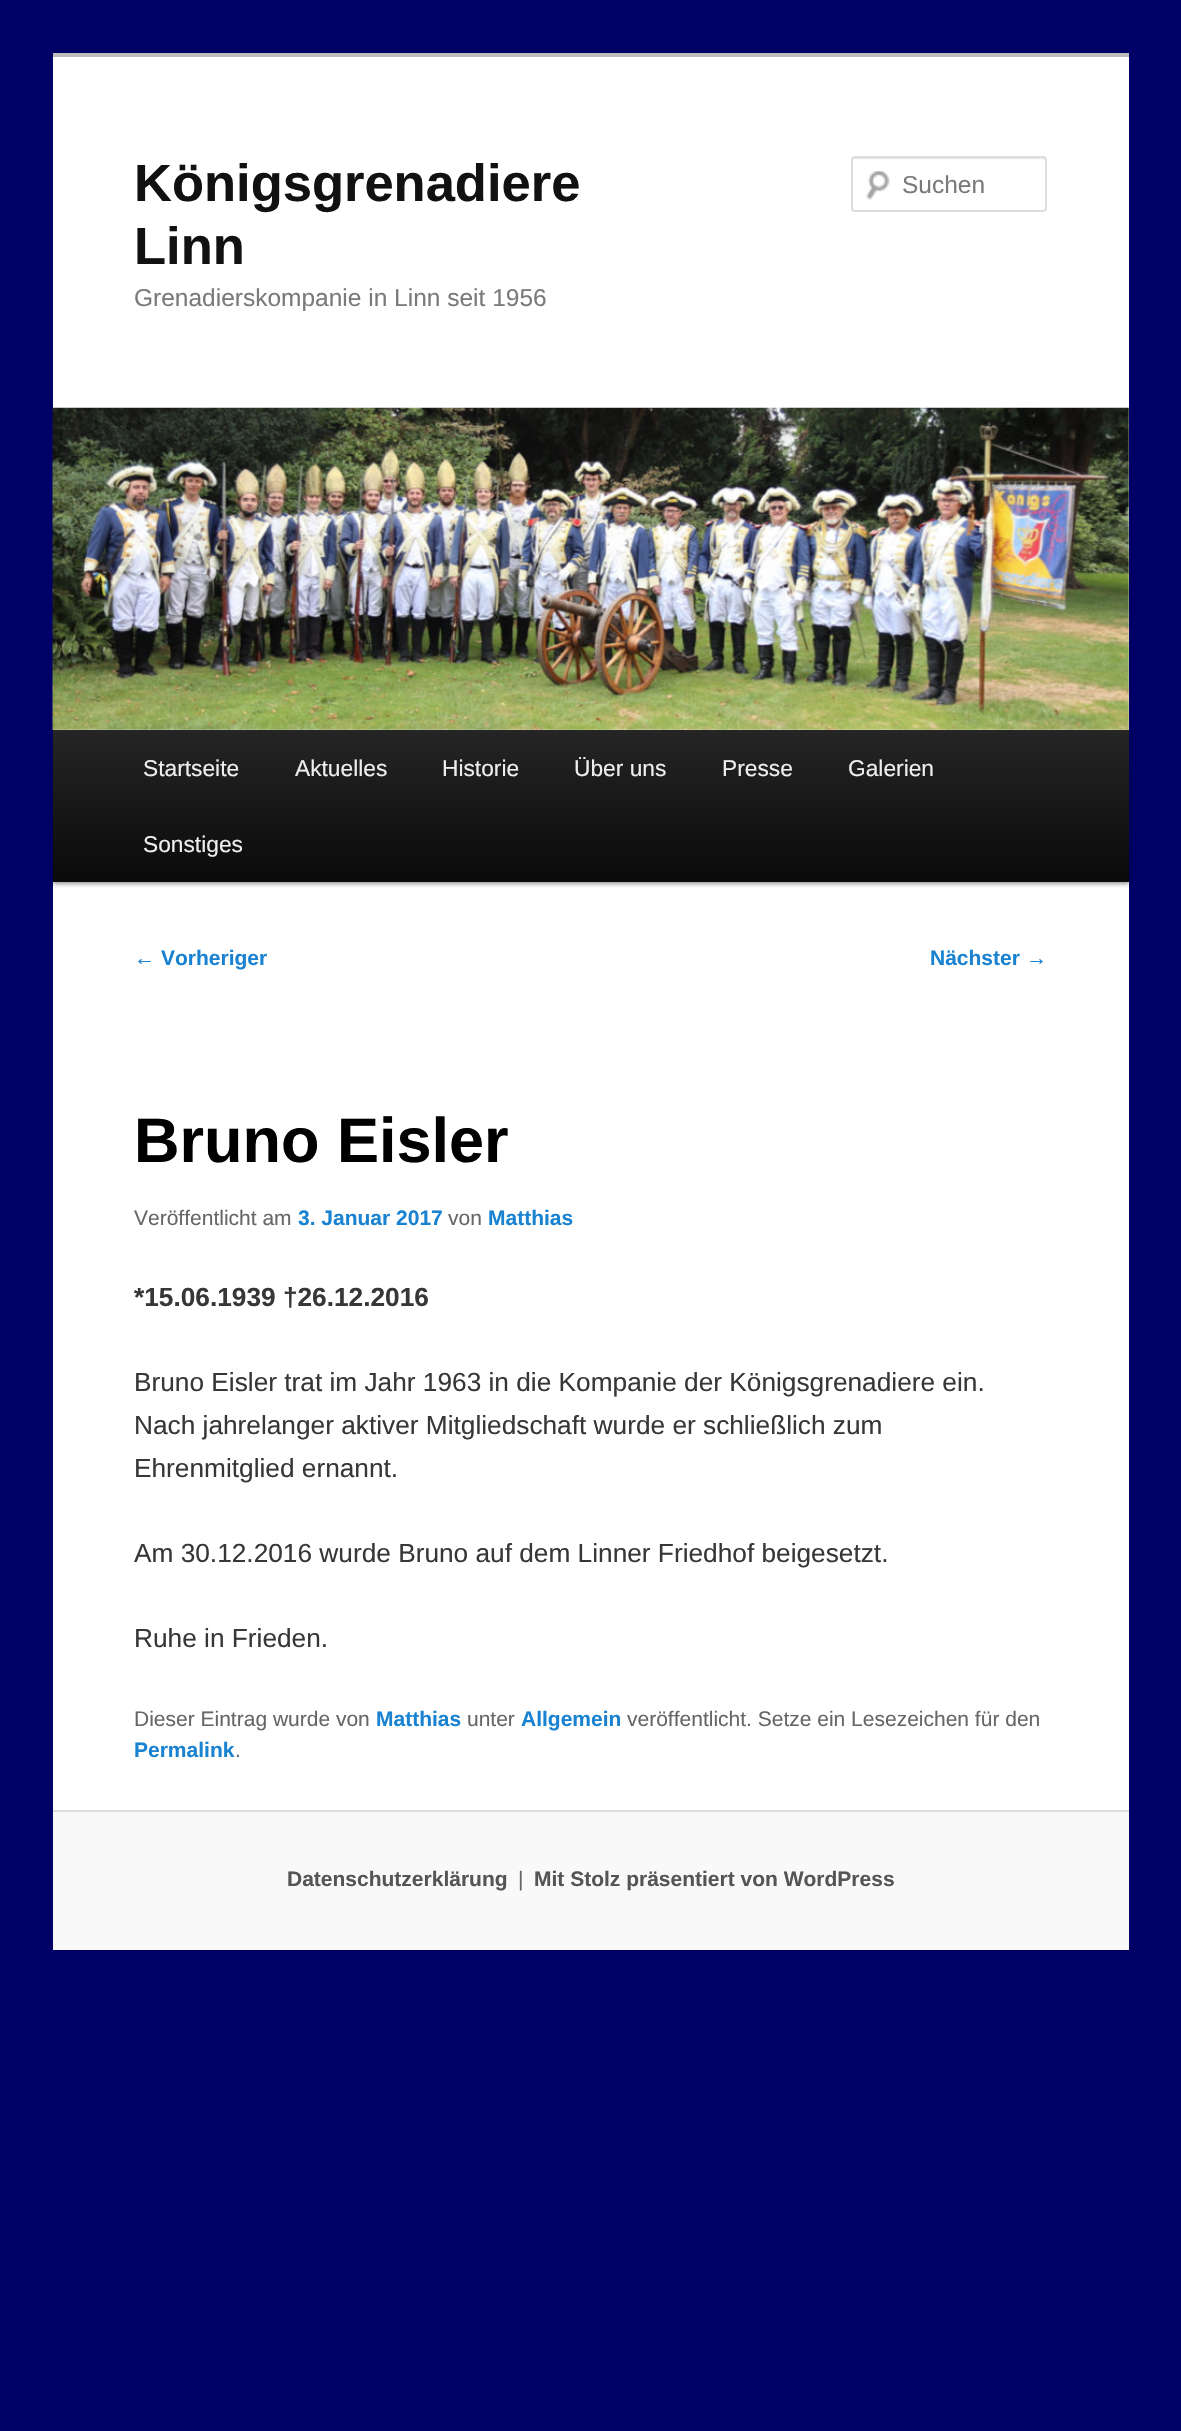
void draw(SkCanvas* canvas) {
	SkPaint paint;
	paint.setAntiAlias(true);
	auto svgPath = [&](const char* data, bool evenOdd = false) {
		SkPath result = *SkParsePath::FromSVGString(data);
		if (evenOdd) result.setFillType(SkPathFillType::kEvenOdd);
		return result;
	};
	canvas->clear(0xff000066);
	paint.setColor(0xffffffff);
	canvas->drawRect(SkRect::MakeXYWH(53, 57, 1076, 1753), paint);
	paint.setColor(0xffbbbbbb);
	canvas->drawRect(SkRect::MakeXYWH(53, 53, 1076, 4), paint);
	SkFont f1(fontMgr->matchFamilyStyle("Liberation Sans", SkFontStyle::Bold()), 52.5);
	f1.setSubpixel(true);
	paint.setColor(0xff111111);
	canvas->drawString("Königsgrenadiere", 134, 201, f1, paint);
	canvas->drawString("Linn", 134, 264, f1, paint);
	SkFont f2(fontMgr->matchFamilyStyle("Liberation Sans", SkFontStyle::Normal()), 24.5);
	f2.setSubpixel(true);
	paint.setColor(0xff7a7a7a);
	canvas->drawString("Grenadierskompanie in Linn seit 1956", 134, 306, f2, paint);
	canvas->drawImageRect(SkImages::DeferredFromEncodedData(SkData::MakeFromFileName("img1.png")), SkRect::MakeXYWH(866, 170, 24, 30), SkSamplingOptions());
	paint.setColor(0xffe6e6e6);
	canvas->drawPath(svgPath("M854 159H1043L1045 160V161V160C1045 159 1044 158 1043 158H854C853 158 852 159 852 160V161C852 160 853 159 854 159Z"), paint);
	paint.setStroke(true);
	paint.setStrokeWidth(2);
	paint.setColor(0xffdddddd);
	canvas->drawRoundRect(SkRect::MakeXYWH(852, 157, 194, 54), 3, 3, paint);
	paint.setStroke(false);
	paint.setColor(0xff7a7a7a);
	canvas->drawString("Suchen", 902, 193, f2, paint);
	paint.setColor(0x66000000);
	paint.setMaskFilter(SkMaskFilter::MakeBlur(kNormal_SkBlurStyle, 2));
	canvas->drawRect(SkRect::MakeXYWH(53, 732, 1076, 152), paint);
	paint.setMaskFilter(nullptr);
	canvas->drawImageRect(SkImages::DeferredFromEncodedData(SkData::MakeFromFileName("img2.png")), SkRect::MakeXYWH(52, 407, 1077, 323), SkSamplingOptions());
	{
		const SkColor colors[] = {0xff252525, 0xff0a0a0a};
		const float stops[] = {0, 1};
		const SkPoint ends[] = {{591, 730}, {591, 882}};
		paint.setShader(SkGradientShader::MakeLinear(ends, colors, stops, 2, SkTileMode::kClamp));
		paint.setAlpha(255);
	}
	canvas->drawRect(SkRect::MakeXYWH(53, 730, 1076, 152), paint);
	SkFont f3(fontMgr->matchFamilyStyle("Liberation Sans", SkFontStyle::Normal()), 22.75);
	f3.setSubpixel(true);
	paint.setShader(nullptr);
	paint.setColor(0xffeeeeee);
	canvas->drawString("Startseite", 143, 776, f3, paint);
	canvas->drawString("Aktuelles", 295, 776, f3, paint);
	canvas->drawString("Historie", 442, 776, f3, paint);
	canvas->drawString("Über uns", 574, 776, f3, paint);
	canvas->drawString("Presse", 722, 776, f3, paint);
	canvas->drawString("Galerien", 848, 776, f3, paint);
	canvas->drawString("Sonstiges", 143, 852, f3, paint);
	SkFont f4(fontMgr->matchFamilyStyle("Liberation Sans", SkFontStyle::Normal()), 21);
	f4.setSubpixel(true);
	paint.setColor(0xff1982d1);
	canvas->drawString("←", 134, 965, f4, paint);
	SkFont f5(fontMgr->matchFamilyStyle("Liberation Sans", SkFontStyle::Bold()), 21);
	f5.setSubpixel(true);
	canvas->drawString("Vorheriger", 161, 965, f5, paint);
	canvas->drawString("Nächster", 930, 965, f5, paint);
	canvas->drawString("→", 1026, 965, f4, paint);
	SkFont f6(fontMgr->matchFamilyStyle("Liberation Sans", SkFontStyle::Bold()), 63);
	f6.setSubpixel(true);
	paint.setColor(0xff000000);
	canvas->drawString("Bruno Eisler", 134, 1162, f6, paint);
	paint.setColor(0xff666666);
	canvas->drawString("Veröffentlicht am", 134, 1225, f4, paint);
	paint.setColor(0xff1982d1);
	canvas->drawString("3. Januar 2017", 298, 1225, f5, paint);
	paint.setColor(0xff666666);
	canvas->drawString("von", 448, 1225, f4, paint);
	paint.setColor(0xff1982d1);
	canvas->drawString("Matthias", 488, 1225, f5, paint);
	SkFont f7(fontMgr->matchFamilyStyle("Liberation Sans", SkFontStyle::Bold()), 26.25);
	f7.setSubpixel(true);
	paint.setColor(0xff373737);
	canvas->drawString("*15.06.1939 †26.12.2016", 134, 1306, f7, paint);
	SkFont f8(fontMgr->matchFamilyStyle("Liberation Sans", SkFontStyle::Normal()), 26.25);
	f8.setSubpixel(true);
	canvas->drawString("Bruno Eisler trat im Jahr 1963 in die Kompanie der Königsgrenadiere ein.", 134, 1391, f8, paint);
	canvas->drawString("Nach jahrelanger aktiver Mitgliedschaft wurde er schließlich zum", 134, 1434, f8, paint);
	canvas->drawString("Ehrenmitglied ernannt.", 134, 1477, f8, paint);
	canvas->drawString("Am 30.12.2016 wurde Bruno auf dem Linner Friedhof beigesetzt.", 134, 1562, f8, paint);
	canvas->drawString("Ruhe in Frieden.", 134, 1647, f8, paint);
	paint.setColor(0xff666666);
	canvas->drawString("Dieser Eintrag wurde von", 134, 1726, f4, paint);
	paint.setColor(0xff1982d1);
	canvas->drawString("Matthias", 376, 1726, f5, paint);
	paint.setColor(0xff666666);
	canvas->drawString("unter", 467, 1726, f4, paint);
	paint.setColor(0xff1982d1);
	canvas->drawString("Allgemein", 521, 1726, f5, paint);
	paint.setColor(0xff666666);
	canvas->drawString("veröffentlicht. Setze ein Lesezeichen für den", 627, 1726, f4, paint);
	paint.setColor(0xff1982d1);
	canvas->drawString("Permalink", 134, 1757, f5, paint);
	paint.setColor(0xff666666);
	canvas->drawString(".", 235, 1757, f4, paint);
	paint.setColor(0xfff9f9f9);
	canvas->drawRect(SkRect::MakeXYWH(53, 1812, 1076, 138), paint);
	paint.setColor(0xffdddddd);
	canvas->drawRect(SkRect::MakeXYWH(53, 1810, 1076, 2), paint);
	paint.setColor(0xff555555);
	canvas->drawString("Datenschutzerklärung", 287, 1886, f5, paint);
	paint.setColor(0xff666666);
	canvas->drawString("|", 518, 1886, f4, paint);
	paint.setColor(0xff555555);
	canvas->drawString("Mit Stolz präsentiert von WordPress", 534, 1886, f5, paint);
}
